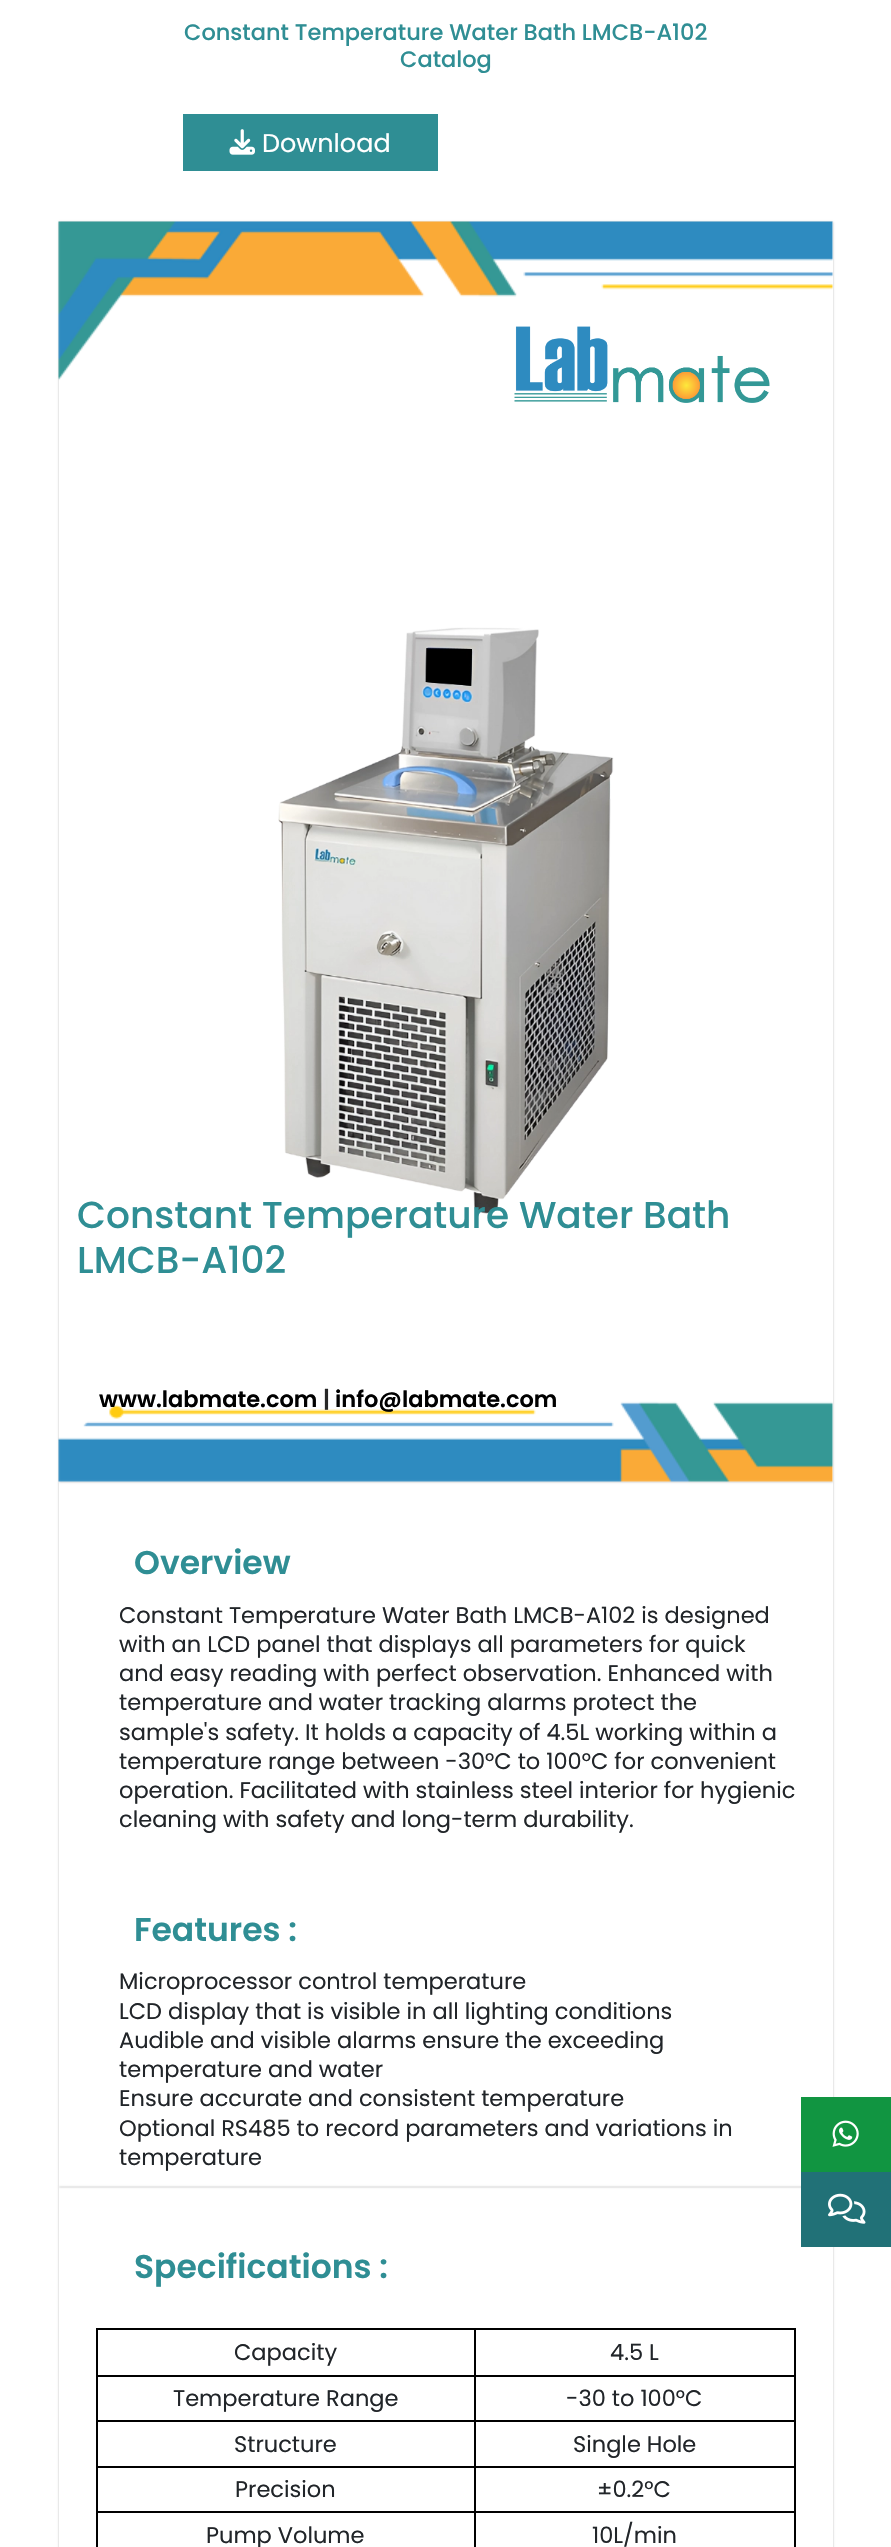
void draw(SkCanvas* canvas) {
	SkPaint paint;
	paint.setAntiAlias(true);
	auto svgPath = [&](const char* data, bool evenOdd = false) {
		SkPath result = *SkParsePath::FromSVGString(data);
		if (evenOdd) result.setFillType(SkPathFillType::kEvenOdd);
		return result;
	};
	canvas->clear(0xffffffff);
	SkFont f1(fontMgr->matchFamilyStyle("Poppins", SkFontStyle(500, SkFontStyle::kNormal_Width, SkFontStyle::kUpright_Slant)), 22.5);
	f1.setSubpixel(true);
	paint.setColor(0xff2f8e94);
	canvas->drawString("Constant Temperature Water Bath LMCB-A102", 184, 40, f1, paint);
	canvas->drawString("Catalog", 400, 67, f1, paint);
	canvas->drawRect(SkRect::MakeXYWH(183, 114, 255, 57), paint);
	canvas->drawImageRect(SkImages::DeferredFromEncodedData(SkData::MakeFromFileName("img1.png")), SkRect::MakeXYWH(229, 129, 26, 26), SkSamplingOptions());
	SkFont f2(fontMgr->matchFamilyStyle("Poppins", SkFontStyle::Normal()), 25.5);
	f2.setSubpixel(true);
	paint.setColor(0xffffffff);
	canvas->drawString("Download", 262, 152, f2, paint);
	canvas->save();
	canvas->clipPath(svgPath("M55 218H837V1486H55ZM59 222H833V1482H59Z", true), true);
	paint.setColor(0x42000000);
	paint.setMaskFilter(SkMaskFilter::MakeBlur(kNormal_SkBlurStyle, 1));
	canvas->drawRect(SkRect::MakeXYWH(59, 222, 774, 1260), paint);
	paint.setMaskFilter(nullptr);
	canvas->restore();
	canvas->save();
	canvas->clipPath(svgPath("M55 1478H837V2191H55ZM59 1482H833V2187H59Z", true), true);
	paint.setMaskFilter(SkMaskFilter::MakeBlur(kNormal_SkBlurStyle, 1));
	canvas->drawRect(SkRect::MakeXYWH(59, 1482, 774, 705), paint);
	paint.setMaskFilter(nullptr);
	canvas->restore();
	canvas->drawImageRect(SkImages::DeferredFromEncodedData(SkData::MakeFromFileName("img2.png")), SkRect::MakeXYWH(58, 221, 775, 1261), SkSamplingOptions());
	canvas->drawImageRect(SkImages::DeferredFromEncodedData(SkData::MakeFromFileName("img3.png")), SkRect::MakeXYWH(514, 326, 256, 77), SkSamplingOptions());
	canvas->drawImageRect(SkImages::DeferredFromEncodedData(SkData::MakeFromFileName("img4.png")), SkRect::MakeXYWH(278, 627, 336, 587), SkSamplingOptions());
	SkFont f3(fontMgr->matchFamilyStyle("Poppins", SkFontStyle(500, SkFontStyle::kNormal_Width, SkFontStyle::kUpright_Slant)), 37.5);
	f3.setSubpixel(true);
	paint.setColor(0xff2f8e94);
	canvas->drawString("Constant Temperature Water Bath", 77, 1228, f3, paint);
	canvas->drawString("LMCB-A102", 77, 1273, f3, paint);
	SkFont f4(fontMgr->matchFamilyStyle("Poppins", SkFontStyle(600, SkFontStyle::kNormal_Width, SkFontStyle::kUpright_Slant)), 22.5);
	f4.setSubpixel(true);
	paint.setColor(0xff000000);
	canvas->drawString("www.labmate.com", 99, 1407, f4, paint);
	paint.setColor(0xff272727);
	canvas->drawString("|", 323, 1407, f4, paint);
	paint.setColor(0xff000000);
	canvas->drawString("info@labmate.com", 335, 1407, f4, paint);
	SkFont f5(fontMgr->matchFamilyStyle("Poppins", SkFontStyle(600, SkFontStyle::kNormal_Width, SkFontStyle::kUpright_Slant)), 33);
	f5.setSubpixel(true);
	paint.setColor(0xff2f8e94);
	canvas->drawString("Overview", 134, 1574, f5, paint);
	SkFont f6(fontMgr->matchFamilyStyle("Poppins", SkFontStyle::Normal()), 22.5);
	f6.setSubpixel(true);
	paint.setColor(0xff212529);
	canvas->drawString("Constant Temperature Water Bath LMCB-A102 is designed", 119, 1623, f6, paint);
	canvas->drawString("with an LCD panel that displays all parameters for quick", 119, 1652, f6, paint);
	canvas->drawString("and easy reading with perfect observation. Enhanced with", 119, 1681, f6, paint);
	canvas->drawString("temperature and water tracking alarms protect the", 119, 1710, f6, paint);
	canvas->drawString("sample's safety. It holds a capacity of 4.5L working within a", 119, 1740, f6, paint);
	canvas->drawString("temperature range between -30°C to 100°C for convenient", 119, 1769, f6, paint);
	canvas->drawString("operation. Facilitated with stainless steel interior for hygienic", 119, 1798, f6, paint);
	canvas->drawString("cleaning with safety and long-term durability.", 119, 1827, f6, paint);
	paint.setColor(0xff2f8e94);
	canvas->drawString("Features :", 134, 1941, f5, paint);
	paint.setColor(0xff212529);
	canvas->drawString("Microprocessor control temperature", 119, 1989, f6, paint);
	canvas->drawString("LCD display that is visible in all lighting conditions", 119, 2019, f6, paint);
	canvas->drawString("Audible and visible alarms ensure the exceeding", 119, 2048, f6, paint);
	canvas->drawString("temperature and water", 119, 2077, f6, paint);
	canvas->drawString("Ensure accurate and consistent temperature", 119, 2106, f6, paint);
	canvas->drawString("Optional RS485 to record parameters and variations in", 119, 2136, f6, paint);
	canvas->drawString("temperature", 119, 2165, f6, paint);
	canvas->save();
	canvas->clipPath(svgPath("M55 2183H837V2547H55ZM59 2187H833V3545H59Z", true), true);
	paint.setColor(0x42000000);
	paint.setMaskFilter(SkMaskFilter::MakeBlur(kNormal_SkBlurStyle, 1));
	canvas->drawRect(SkRect::MakeXYWH(59, 2187, 774, 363), paint);
	paint.setMaskFilter(nullptr);
	canvas->restore();
	paint.setColor(0xff2f8e94);
	canvas->drawString("Specifications :", 134, 2278, f5, paint);
	paint.setColor(0xff000000);
	canvas->drawRect(SkRect::MakeXYWH(474, 2328, 321, 2), paint);
	canvas->drawRect(SkRect::MakeXYWH(474, 2375, 321, 2), paint);
	canvas->drawRect(SkRect::MakeXYWH(474, 2420, 321, 2), paint);
	canvas->drawRect(SkRect::MakeXYWH(474, 2466, 321, 2), paint);
	canvas->drawRect(SkRect::MakeXYWH(474, 2511, 321, 2), paint);
	canvas->drawRect(SkRect::MakeXYWH(474, 2511, 2, 36), paint);
	canvas->drawRect(SkRect::MakeXYWH(96, 2511, 380, 2), paint);
	canvas->drawRect(SkRect::MakeXYWH(474, 2466, 2, 47), paint);
	canvas->drawRect(SkRect::MakeXYWH(96, 2466, 380, 2), paint);
	canvas->drawRect(SkRect::MakeXYWH(474, 2420, 2, 48), paint);
	canvas->drawRect(SkRect::MakeXYWH(96, 2420, 380, 2), paint);
	canvas->drawRect(SkRect::MakeXYWH(474, 2375, 2, 46), paint);
	canvas->drawRect(SkRect::MakeXYWH(96, 2375, 380, 2), paint);
	canvas->drawRect(SkRect::MakeXYWH(474, 2328, 2, 48), paint);
	canvas->drawRect(SkRect::MakeXYWH(96, 2328, 380, 2), paint);
	canvas->drawRect(SkRect::MakeXYWH(96, 2511, 2, 36), paint);
	canvas->drawRect(SkRect::MakeXYWH(96, 2466, 2, 47), paint);
	canvas->drawRect(SkRect::MakeXYWH(96, 2420, 2, 48), paint);
	canvas->drawRect(SkRect::MakeXYWH(96, 2375, 2, 46), paint);
	canvas->drawRect(SkRect::MakeXYWH(96, 2328, 2, 48), paint);
	paint.setColor(0xff212529);
	canvas->drawString("Capacity", 234, 2360, f6, paint);
	paint.setColor(0xff000000);
	canvas->drawRect(SkRect::MakeXYWH(794, 2511, 2, 36), paint);
	canvas->drawRect(SkRect::MakeXYWH(794, 2466, 2, 47), paint);
	canvas->drawRect(SkRect::MakeXYWH(794, 2420, 2, 48), paint);
	canvas->drawRect(SkRect::MakeXYWH(794, 2375, 2, 46), paint);
	canvas->drawRect(SkRect::MakeXYWH(794, 2328, 2, 48), paint);
	paint.setColor(0xff212529);
	canvas->drawString("4.5 L", 610, 2360, f6, paint);
	canvas->drawString("Temperature Range", 173, 2406, f6, paint);
	canvas->drawString("-30 to 100°C", 566, 2406, f6, paint);
	canvas->drawString("Structure", 234, 2452, f6, paint);
	canvas->drawString("Single Hole", 573, 2452, f6, paint);
	canvas->drawString("Precision", 235, 2497, f6, paint);
	canvas->drawString("±0.2°C", 597, 2497, f6, paint);
	canvas->drawString("Pump Volume", 206, 2543, f6, paint);
	canvas->drawString("10L/min", 592, 2543, f6, paint);
	paint.setColor(0xff119541);
	canvas->drawRect(SkRect::MakeXYWH(801, 2097, 90, 75), paint);
	canvas->drawImageRect(SkImages::DeferredFromEncodedData(SkData::MakeFromFileName("img5.png")), SkRect::MakeXYWH(832, 2120, 27, 27), SkSamplingOptions());
	paint.setColor(0xff217177);
	canvas->drawRect(SkRect::MakeXYWH(801, 2172, 90, 75), paint);
	canvas->drawImageRect(SkImages::DeferredFromEncodedData(SkData::MakeFromFileName("img6.png")), SkRect::MakeXYWH(828, 2193, 38, 31), SkSamplingOptions());
}
